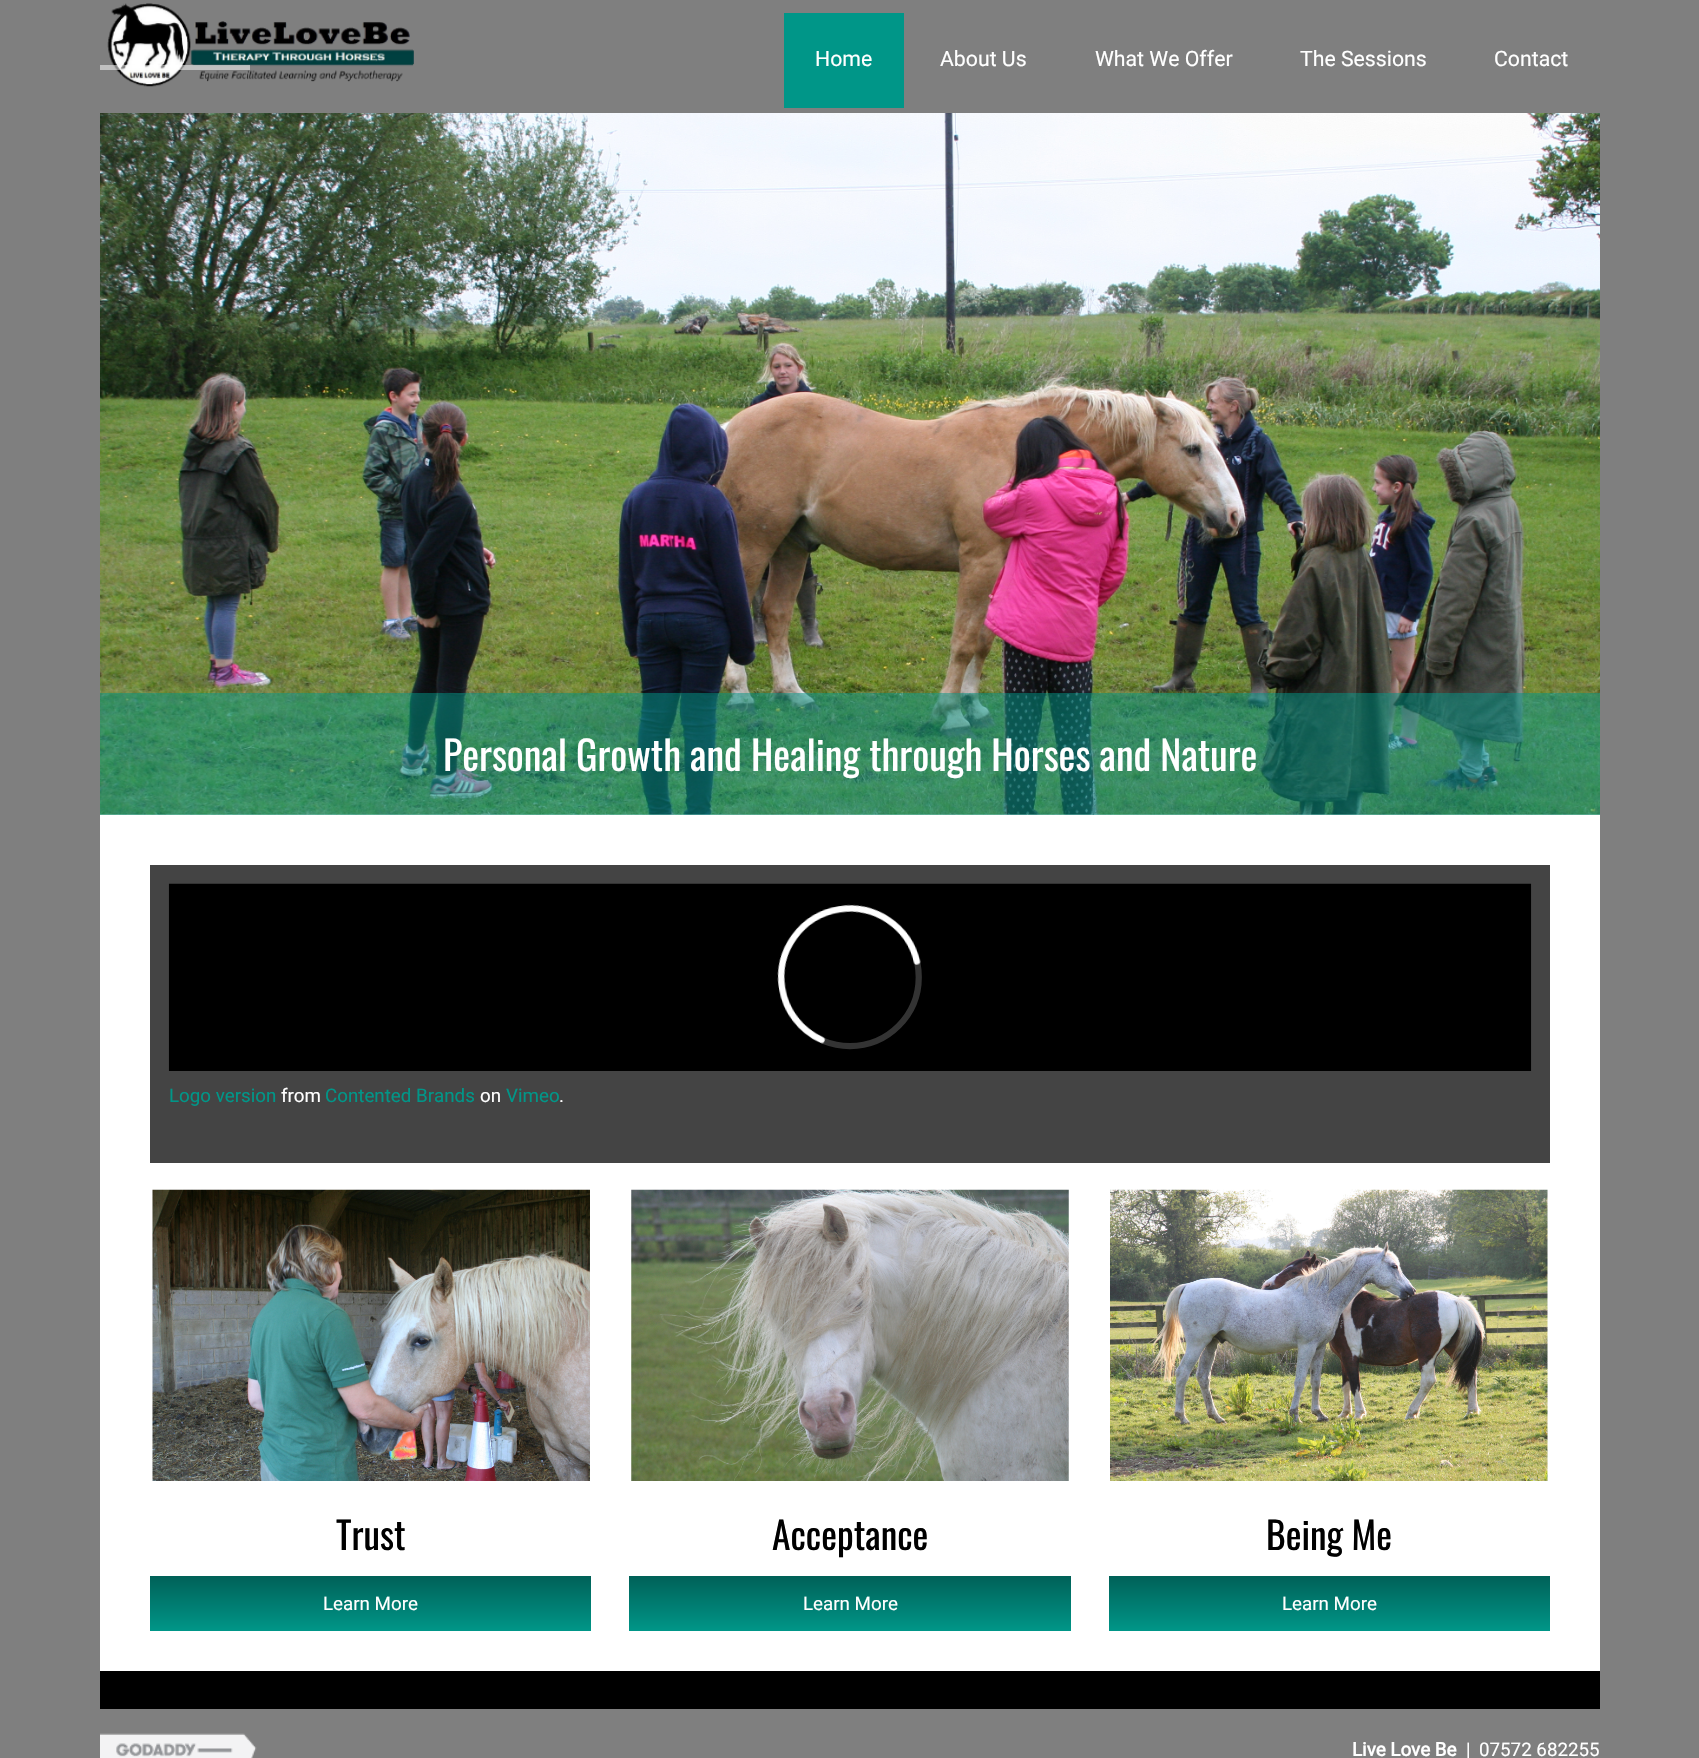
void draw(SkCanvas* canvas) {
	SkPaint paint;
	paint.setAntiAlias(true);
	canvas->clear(0xff7f7f7f);
	canvas->drawImageRect(SkImages::DeferredFromEncodedData(SkData::MakeFromFileName("img1.png")), SkRect::MakeXYWH(107, 3, 307, 84), SkSamplingOptions());
	paint.setColor(0xff009688);
	canvas->drawRect(SkRect::MakeXYWH(784, 13, 120, 95), paint);
	SkFont f1(fontMgr->matchFamilyStyle("Roboto", SkFontStyle::Normal()), 21.25);
	f1.setSubpixel(true);
	paint.setColor(0xffffffff);
	canvas->drawString("Home", 815, 66, f1, paint);
	canvas->drawString("About Us", 940, 66, f1, paint);
	canvas->drawString("What We Offer", 1095, 66, f1, paint);
	canvas->drawString("The Sessions", 1300, 66, f1, paint);
	canvas->drawString("Contact", 1494, 66, f1, paint);
	canvas->drawRect(SkRect::MakeXYWH(100, 814, 1500, 857), paint);
	paint.setColor(0xff000000);
	canvas->drawRect(SkRect::MakeXYWH(100, 1671, 1500, 38), paint);
	paint.setColor(0x80ffffff);
	canvas->drawRect(SkRect::MakeXYWH(100, 65, 150, 5), paint);
	canvas->drawImageRect(SkImages::DeferredFromEncodedData(SkData::MakeFromFileName("img2.png")), SkRect::MakeXYWH(100, 113, 1500, 702), SkSamplingOptions());
	paint.setColor(0x80009688);
	canvas->drawRect(SkRect::MakeXYWH(100, 693, 1500, 122), paint);
	SkFont f2(fontMgr->matchFamilyStyle("Oswald", SkFontStyle::Normal()), 40);
	f2.setSubpixel(true);
	paint.setColor(0xffffffff);
	canvas->drawString("Personal Growth and Healing through Horses and Nature", 443, 771, f2, paint);
	paint.setColor(0xff444444);
	canvas->drawRect(SkRect::MakeXYWH(150, 865, 1400, 298), paint);
	canvas->drawImageRect(SkImages::DeferredFromEncodedData(SkData::MakeFromFileName("img3.png")), SkRect::MakeXYWH(168, 883, 1364, 188), SkSamplingOptions());
	SkFont f3(fontMgr->matchFamilyStyle("Roboto", SkFontStyle::Normal()), 18.75);
	f3.setSubpixel(true);
	paint.setColor(0xff009688);
	canvas->drawString("Logo version", 169, 1102, f3, paint);
	paint.setColor(0xffffffff);
	canvas->drawString("from", 281, 1102, f3, paint);
	paint.setColor(0xff009688);
	canvas->drawString("Contented Brands", 325, 1102, f3, paint);
	paint.setColor(0xffffffff);
	canvas->drawString("on", 480, 1102, f3, paint);
	paint.setColor(0xff009688);
	canvas->drawString("Vimeo", 506, 1102, f3, paint);
	paint.setColor(0xffffffff);
	canvas->drawString(".", 559, 1102, f3, paint);
	canvas->drawImageRect(SkImages::DeferredFromEncodedData(SkData::MakeFromFileName("img4.png")), SkRect::MakeXYWH(152, 1189, 438, 292), SkSamplingOptions());
	SkFont f4(fontMgr->matchFamilyStyle("Oswald", SkFontStyle::Normal()), 37.5);
	f4.setSubpixel(true);
	paint.setColor(0xff000000);
	canvas->drawString("Trust", 336, 1550, f4, paint);
	{
		const SkColor colors[] = {0xff006158, 0xff009688};
		const float stops[] = {0, 1};
		const SkPoint ends[] = {{371, 1576}, {371, 1631}};
		paint.setShader(SkGradientShader::MakeLinear(ends, colors, stops, 2, SkTileMode::kClamp));
		paint.setAlpha(255);
	}
	canvas->drawRect(SkRect::MakeXYWH(150, 1576, 441, 55), paint);
	paint.setShader(nullptr);
	paint.setColor(0xffffffff);
	canvas->drawString("Learn More", 323, 1610, f3, paint);
	canvas->drawImageRect(SkImages::DeferredFromEncodedData(SkData::MakeFromFileName("img5.png")), SkRect::MakeXYWH(631, 1189, 438, 292), SkSamplingOptions());
	paint.setColor(0xff000000);
	canvas->drawString("Acceptance", 772, 1550, f4, paint);
	{
		const SkColor colors[] = {0xff006158, 0xff009688};
		const float stops[] = {0, 1};
		const SkPoint ends[] = {{850, 1576}, {850, 1631}};
		paint.setShader(SkGradientShader::MakeLinear(ends, colors, stops, 2, SkTileMode::kClamp));
		paint.setAlpha(255);
	}
	canvas->drawRect(SkRect::MakeXYWH(629, 1576, 442, 55), paint);
	paint.setShader(nullptr);
	paint.setColor(0xffffffff);
	canvas->drawString("Learn More", 803, 1610, f3, paint);
	canvas->drawImageRect(SkImages::DeferredFromEncodedData(SkData::MakeFromFileName("img6.png")), SkRect::MakeXYWH(1110, 1189, 438, 292), SkSamplingOptions());
	paint.setColor(0xff000000);
	canvas->drawString("Being Me", 1266, 1550, f4, paint);
	{
		const SkColor colors[] = {0xff006158, 0xff009688};
		const float stops[] = {0, 1};
		const SkPoint ends[] = {{1329, 1576}, {1329, 1631}};
		paint.setShader(SkGradientShader::MakeLinear(ends, colors, stops, 2, SkTileMode::kClamp));
		paint.setAlpha(255);
	}
	canvas->drawRect(SkRect::MakeXYWH(1109, 1576, 441, 55), paint);
	paint.setShader(nullptr);
	paint.setColor(0xffffffff);
	canvas->drawString("Learn More", 1282, 1610, f3, paint);
	canvas->drawImageRect(SkImages::DeferredFromEncodedData(SkData::MakeFromFileName("img7.png")), SkRect::MakeXYWH(100, 1733, 157, 25), SkSamplingOptions());
	SkFont f5(fontMgr->matchFamilyStyle("Roboto", SkFontStyle::Bold()), 18.75);
	f5.setSubpixel(true);
	canvas->drawString("Live Love Be", 1352, 1756, f5, paint);
	canvas->drawString("|", 1466, 1756, f3, paint);
	canvas->drawString("07572 682255", 1479, 1756, f3, paint);
}
